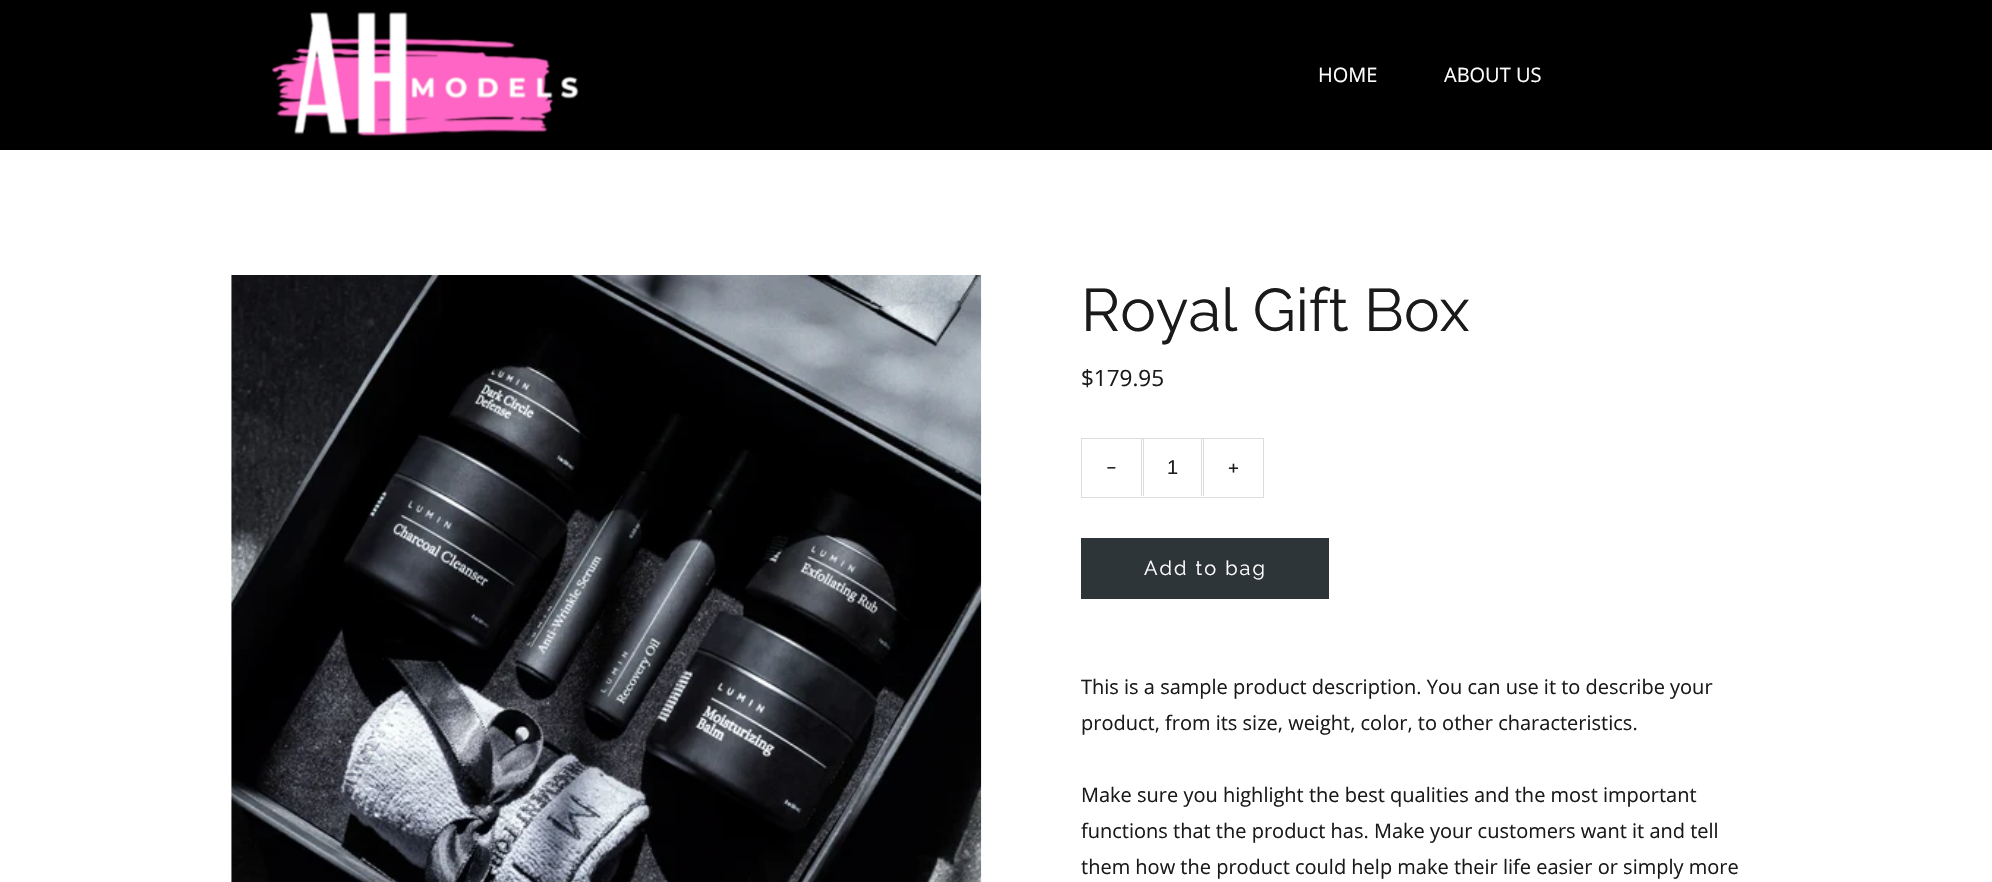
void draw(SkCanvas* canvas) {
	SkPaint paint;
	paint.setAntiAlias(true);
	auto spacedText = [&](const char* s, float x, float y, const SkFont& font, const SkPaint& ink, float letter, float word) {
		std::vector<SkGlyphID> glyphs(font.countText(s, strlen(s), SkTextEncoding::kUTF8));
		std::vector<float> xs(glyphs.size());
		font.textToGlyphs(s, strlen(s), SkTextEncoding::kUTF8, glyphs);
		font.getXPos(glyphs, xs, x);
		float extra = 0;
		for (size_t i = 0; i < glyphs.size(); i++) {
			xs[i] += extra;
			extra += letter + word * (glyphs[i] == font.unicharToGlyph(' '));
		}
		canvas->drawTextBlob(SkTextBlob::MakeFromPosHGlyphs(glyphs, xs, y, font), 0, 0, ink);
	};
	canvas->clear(0xffffffff);
	paint.setColor(0xff000000);
	canvas->drawRect(SkRect::MakeXYWH(0, 0, 1992, 150), paint);
	canvas->drawImageRect(SkImages::DeferredFromEncodedData(SkData::MakeFromFileName("img1.png")), SkRect::MakeXYWH(271, 12, 308, 125), SkSamplingOptions());
	SkFont f1(fontMgr->matchFamilyStyle("Open Sans", SkFontStyle::Normal()), 20);
	f1.setSubpixel(true);
	paint.setColor(0xffffffff);
	canvas->drawString("HOME", 1318, 82, f1, paint);
	canvas->drawString("ABOUT US", 1444, 82, f1, paint);
	canvas->drawImageRect(SkImages::DeferredFromEncodedData(SkData::MakeFromFileName("img2.png")), SkRect::MakeXYWH(231, 275, 751, 607), SkSamplingOptions());
	SkFont f2(fontMgr->matchFamilyStyle("Raleway", SkFontStyle(100, SkFontStyle::kNormal_Width, SkFontStyle::kUpright_Slant)), 60);
	f2.setSubpixel(true);
	paint.setColor(0xff1a1a1a);
	canvas->drawString("Royal Gift Box", 1081, 331, f2, paint);
	SkFont f3(fontMgr->matchFamilyStyle("Open Sans", SkFontStyle::Normal()), 22.5);
	f3.setSubpixel(true);
	canvas->drawString("$179.95", 1081, 386, f3, paint);
	paint.setStroke(true);
	paint.setStrokeWidth(1);
	paint.setColor(0xffdadce0);
	canvas->drawRect(SkRect::MakeXYWH(1081.5, 438.5, 182, 59), paint);
	paint.setStroke(false);
	canvas->drawRect(SkRect::MakeXYWH(1141, 439, 1, 57), paint);
	SkFont f4(fontMgr->matchFamilyStyle("DM Sans", SkFontStyle::Normal()), 20);
	f4.setSubpixel(true);
	paint.setColor(0xff1d1e20);
	canvas->drawString("-", 1106, 474, f4, paint);
	paint.setColor(0xffdadce0);
	canvas->drawRect(SkRect::MakeXYWH(1201, 439, 1, 57), paint);
	canvas->drawRect(SkRect::MakeXYWH(1143, 439, 1, 57), paint);
	SkFont f5(fontMgr->matchFamilyStyle("Liberation Sans", SkFontStyle::Normal()), 20);
	f5.setSubpixel(true);
	paint.setColor(0xff1d1e20);
	canvas->drawString("1", 1167, 474, f5, paint);
	paint.setColor(0xffdadce0);
	canvas->drawRect(SkRect::MakeXYWH(1203, 439, 1, 57), paint);
	paint.setColor(0xff1d1e20);
	canvas->drawString("+", 1228, 474, f4, paint);
	paint.setColor(0xff2e3538);
	canvas->drawRect(SkRect::MakeXYWH(1081, 538, 248, 61), paint);
	SkFont f6(fontMgr->matchFamilyStyle("Raleway", SkFontStyle(100, SkFontStyle::kNormal_Width, SkFontStyle::kUpright_Slant)), 20);
	f6.setSubpixel(true);
	paint.setColor(0xffffffff);
	spacedText("Add to bag", 1144, 575, f6, paint, 2, 0);
	paint.setColor(0xff1a1a1a);
	canvas->drawString("This is a sample product description. You can use it to describe your", 1081, 694, f1, paint);
	canvas->drawString("product, from its size, weight, color, to other characteristics.", 1081, 730, f1, paint);
	canvas->drawString("Make sure you highlight the best qualities and the most important", 1081, 802, f1, paint);
	canvas->drawString("functions that the product has. Make your customers want it and tell", 1081, 838, f1, paint);
	canvas->drawString("them how the product could help make their life easier or simply more", 1081, 874, f1, paint);
}
